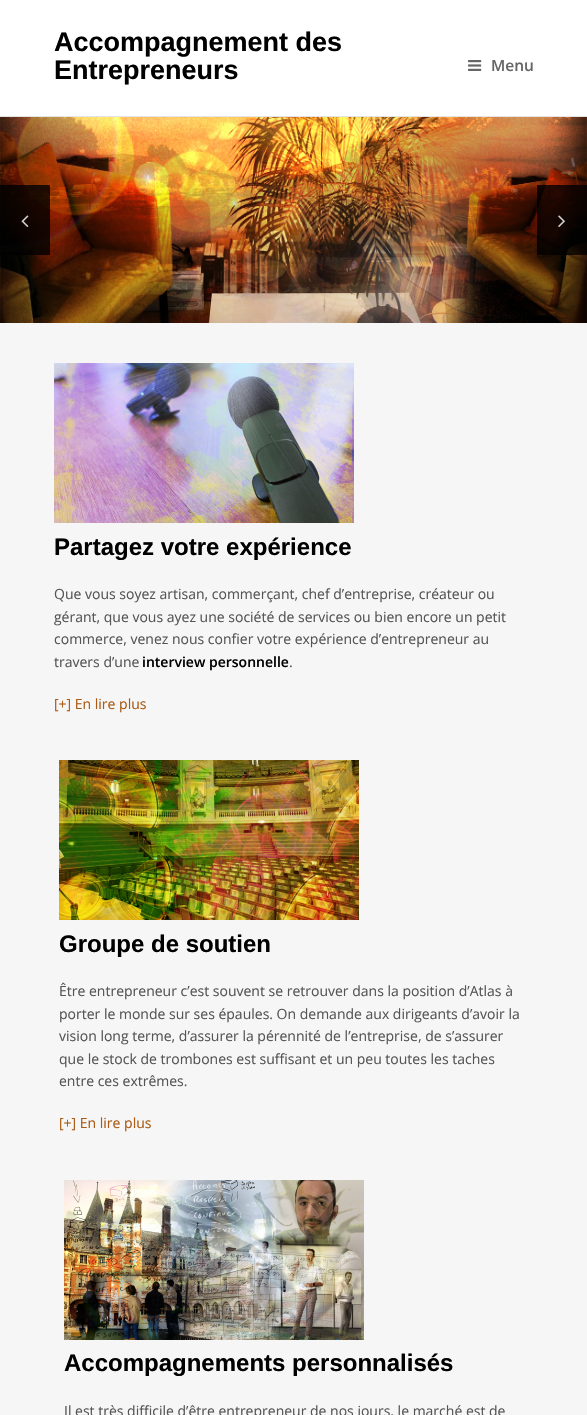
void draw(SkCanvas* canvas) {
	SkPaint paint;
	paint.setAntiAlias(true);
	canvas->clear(0xfff6f6f6);
	paint.setColor(0xffffffff);
	canvas->drawRect(SkRect::MakeXYWH(0, 0, 587, 116), paint);
	paint.setColor(0xffe4e4e4);
	canvas->drawRect(SkRect::MakeXYWH(0, 116, 587, 1), paint);
	SkFont f1(fontMgr->matchFamilyStyle("Liberation Sans", SkFontStyle::Bold()), 27);
	f1.setSubpixel(true);
	paint.setColor(0xff000000);
	canvas->drawString("Accompagnement des", 54, 51, f1, paint);
	canvas->drawString("Entrepreneurs", 54, 79, f1, paint);
	canvas->drawImageRect(SkImages::DeferredFromEncodedData(SkData::MakeFromFileName("img1.png")), SkRect::MakeXYWH(468, 60, 14, 11), SkSamplingOptions());
	SkFont f2(fontMgr->matchFamilyStyle("Open Sans", SkFontStyle(600, SkFontStyle::kNormal_Width, SkFontStyle::kUpright_Slant)), 15.5);
	f2.setSubpixel(true);
	paint.setColor(0xff666666);
	canvas->drawString("Menu", 491, 71, f2, paint);
	canvas->drawImageRect(SkImages::DeferredFromEncodedData(SkData::MakeFromFileName("img2.png")), SkRect::MakeXYWH(0, 117, 587, 206), SkSamplingOptions());
	paint.setColor(0xcc000000);
	canvas->drawRect(SkRect::MakeXYWH(0, 185, 50, 70), paint);
	canvas->drawImageRect(SkImages::DeferredFromEncodedData(SkData::MakeFromFileName("img3.png")), SkRect::MakeXYWH(21, 215, 8, 12), SkSamplingOptions());
	canvas->drawRect(SkRect::MakeXYWH(537, 185, 50, 70), paint);
	canvas->drawImageRect(SkImages::DeferredFromEncodedData(SkData::MakeFromFileName("img4.png")), SkRect::MakeXYWH(558, 215, 7, 12), SkSamplingOptions());
	canvas->drawImageRect(SkImages::DeferredFromEncodedData(SkData::MakeFromFileName("img5.png")), SkRect::MakeXYWH(54, 363, 300, 160), SkSamplingOptions());
	SkFont f3(fontMgr->matchFamilyStyle("Liberation Sans", SkFontStyle::Bold()), 24);
	f3.setSubpixel(true);
	paint.setColor(0xff000000);
	canvas->drawString("Partagez votre expérience", 54, 555, f3, paint);
	SkFont f4(fontMgr->matchFamilyStyle("Open Sans", SkFontStyle::Normal()), 14);
	f4.setSubpixel(true);
	paint.setColor(0xff555555);
	canvas->drawString("Que vous soyez artisan, commerçant, chef d’entreprise, créateur ou", 54, 599, f4, paint);
	canvas->drawString("gérant, que vous ayez une société de services ou bien encore un petit", 54, 622, f4, paint);
	canvas->drawString("commerce, venez nous confier votre expérience d’entrepreneur au", 54, 644, f4, paint);
	canvas->drawString("travers d’une", 54, 667, f4, paint);
	SkFont f5(fontMgr->matchFamilyStyle("Open Sans", SkFontStyle(600, SkFontStyle::kNormal_Width, SkFontStyle::kUpright_Slant)), 14);
	f5.setSubpixel(true);
	paint.setColor(0xff000000);
	canvas->drawString("interview personnelle", 142, 667, f5, paint);
	paint.setColor(0xff555555);
	canvas->drawString(".", 289, 667, f4, paint);
	paint.setColor(0xffaa5a13);
	canvas->drawString("[+] En lire plus", 54, 709, f4, paint);
	canvas->drawImageRect(SkImages::DeferredFromEncodedData(SkData::MakeFromFileName("img6.png")), SkRect::MakeXYWH(59, 760, 300, 160), SkSamplingOptions());
	paint.setColor(0xff000000);
	canvas->drawString("Groupe de soutien", 59, 952, f3, paint);
	paint.setColor(0xff555555);
	canvas->drawString("Être entrepreneur c’est souvent se retrouver dans la position d’Atlas à", 59, 996, f4, paint);
	canvas->drawString("porter le monde sur ses épaules. On demande aux dirigeants d’avoir la", 59, 1019, f4, paint);
	canvas->drawString("vision long terme, d’assurer la pérennité de l’entreprise, de s’assurer", 59, 1041, f4, paint);
	canvas->drawString("que le stock de trombones est suffisant et un peu toutes les taches", 59, 1064, f4, paint);
	canvas->drawString("entre ces extrêmes.", 59, 1086, f4, paint);
	paint.setColor(0xffaa5a13);
	canvas->drawString("[+] En lire plus", 59, 1128, f4, paint);
	canvas->drawImageRect(SkImages::DeferredFromEncodedData(SkData::MakeFromFileName("img7.png")), SkRect::MakeXYWH(64, 1180, 300, 160), SkSamplingOptions());
	paint.setColor(0xff000000);
	canvas->drawString("Accompagnements personnalisés", 64, 1371, f3, paint);
	paint.setColor(0xff555555);
	canvas->drawString("Il est très difficile d’être entrepreneur de nos jours, le marché est de", 64, 1416, f4, paint);
}
